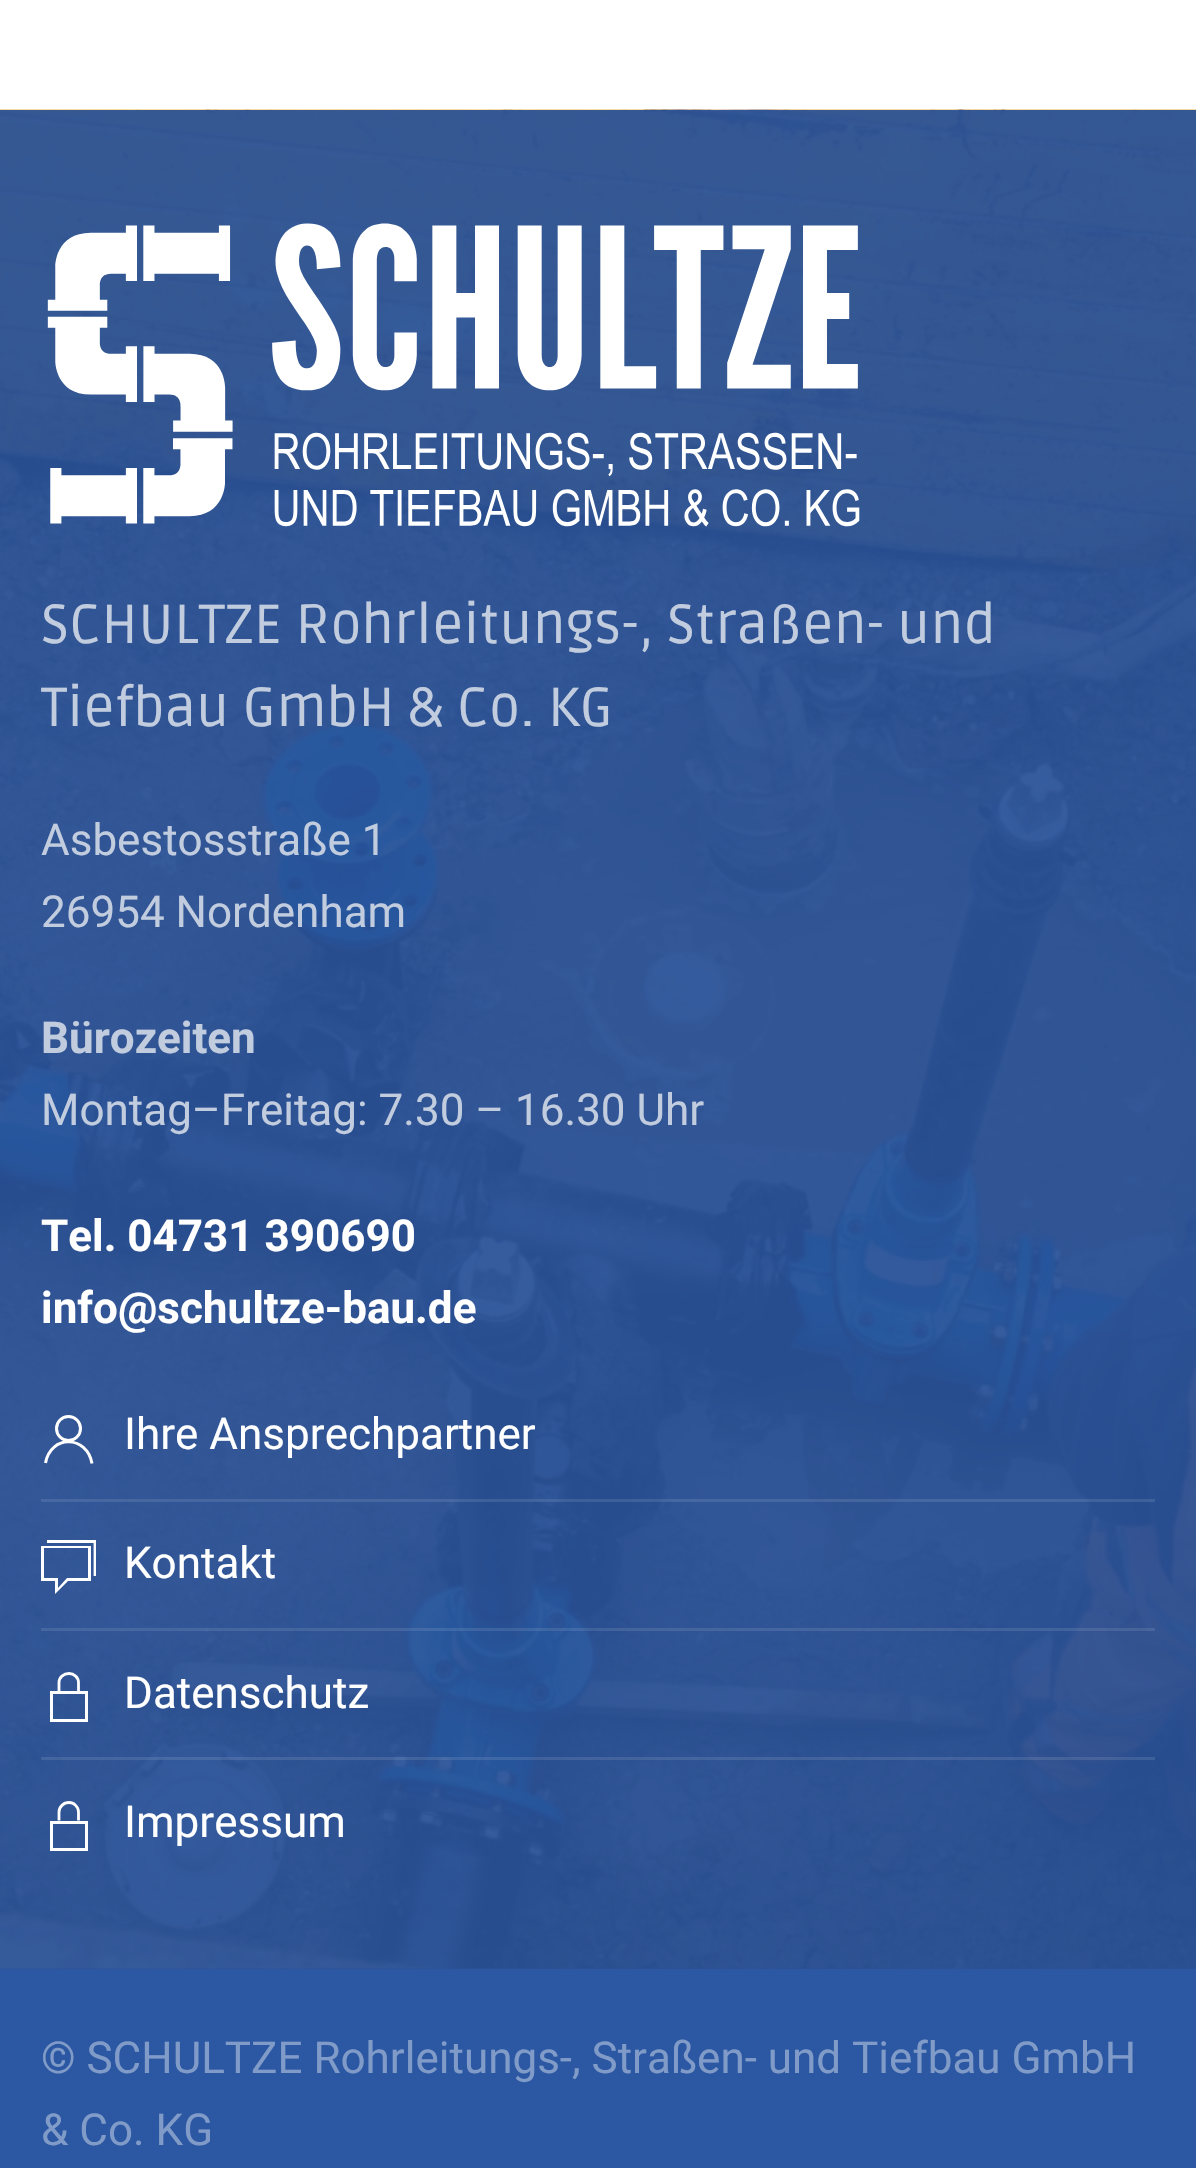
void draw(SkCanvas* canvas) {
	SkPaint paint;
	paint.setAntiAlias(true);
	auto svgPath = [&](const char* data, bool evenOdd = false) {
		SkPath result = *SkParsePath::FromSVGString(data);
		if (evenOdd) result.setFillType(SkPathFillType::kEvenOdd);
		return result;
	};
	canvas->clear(0xffffffff);
	paint.setColor(0xff295299);
	canvas->drawRect(SkRect::MakeXYWH(0, 1968, 1196, 1), paint);
	canvas->drawImageRect(SkImages::DeferredFromEncodedData(SkData::MakeFromFileName("img1.png")), SkRect::MakeXYWH(0, 109, 1196, 1860), SkSamplingOptions());
	canvas->drawImageRect(SkImages::DeferredFromEncodedData(SkData::MakeFromFileName("img2.png")), SkRect::MakeXYWH(47, 223, 813, 304), SkSamplingOptions());
	SkFont f1(fontMgr->matchFamilyStyle("Ruda", SkFontStyle::Normal()), 55);
	f1.setSubpixel(true);
	paint.setColor(0xffc1ccdf);
	canvas->drawString("SCHULTZE Rohrleitungs-, Straßen- und", 41, 643, f1, paint);
	canvas->drawString("Tiefbau GmbH & Co. KG", 41, 726, f1, paint);
	SkFont f2(fontMgr->matchFamilyStyle("Roboto", SkFontStyle::Normal()), 44);
	f2.setSubpixel(true);
	canvas->drawString("Asbestosstraße 1", 41, 855, f2, paint);
	canvas->drawString("26954 Nordenham", 41, 927, f2, paint);
	SkFont f3(fontMgr->matchFamilyStyle("Roboto", SkFontStyle::Bold()), 44);
	f3.setSubpixel(true);
	canvas->drawString("Bürozeiten", 41, 1053, f3, paint);
	canvas->drawString("Montag–Freitag: 7.30 – 16.30 Uhr", 41, 1125, f2, paint);
	paint.setColor(0xffffffff);
	canvas->drawString("Tel. 04731 390690", 41, 1251, f3, paint);
	canvas->drawString("info@schultze-bau.de", 41, 1323, f3, paint);
	paint.setStroke(true);
	paint.setStrokeWidth(3);
	canvas->drawCircle(68.5, 1428.5, 12, paint);
	canvas->drawPath(svgPath("M45.5 1463C50.5 1434.5 87 1435 92 1463.5"), paint);
	paint.setStroke(false);
	canvas->drawString("Ihre Ansprechpartner", 124, 1449, f2, paint);
	paint.setColor(0x1affffff);
	canvas->drawRect(SkRect::MakeXYWH(41, 1499, 1114, 3), paint);
	canvas->save();
	canvas->clipRect(SkRect::MakeXYWH(41, 1540, 55, 55));
	paint.setStroke(true);
	paint.setStrokeWidth(2.8);
	paint.setColor(0xffffffff);
	canvas->drawPath(svgPath("M47 1541.5H95V1576"), paint);
	canvas->restore();
	paint.setStroke(false);
	canvas->drawPath(svgPath("M55 1594V1581H41V1546H91V1581H68ZM44 1578H58V1588L67 1578H88V1548H44Z"), paint);
	canvas->drawString("Kontakt", 124, 1578, f2, paint);
	paint.setColor(0x1affffff);
	canvas->drawRect(SkRect::MakeXYWH(41, 1628, 1114, 3), paint);
	paint.setStroke(true);
	paint.setColor(0xffffffff);
	canvas->drawPath(svgPath("M59 1691V1682.5C59 1677.5 63.5 1673.5 69 1673.5C74 1673.5 78.5 1677.5 78.5 1682.5V1691"), paint);
	paint.setStrokeWidth(3);
	canvas->drawRect(SkRect::MakeXYWH(51.5, 1692.5, 35, 28), paint);
	paint.setStroke(false);
	canvas->drawString("Datenschutz", 124, 1708, f2, paint);
	paint.setColor(0x1affffff);
	canvas->drawRect(SkRect::MakeXYWH(41, 1757, 1114, 3), paint);
	paint.setStroke(true);
	paint.setStrokeWidth(2.8);
	paint.setColor(0xffffffff);
	canvas->drawPath(svgPath("M59 1820.5V1812C59 1807 63.5 1802.5 69 1802.5C74 1802.5 78.5 1807 78.5 1812V1820.5"), paint);
	paint.setStrokeWidth(3);
	canvas->drawRect(SkRect::MakeXYWH(51.5, 1822.5, 35, 27), paint);
	paint.setStroke(false);
	canvas->drawString("Impressum", 124, 1837, f2, paint);
	paint.setColor(0xff2c58a3);
	canvas->drawRect(SkRect::MakeXYWH(0, 1969, 1196, 199), paint);
	paint.setColor(0xff809bc8);
	canvas->drawString("© SCHULTZE Rohrleitungs-, Straßen- und Tiefbau GmbH", 41, 2073, f2, paint);
	canvas->drawString("& Co. KG", 41, 2145, f2, paint);
}
